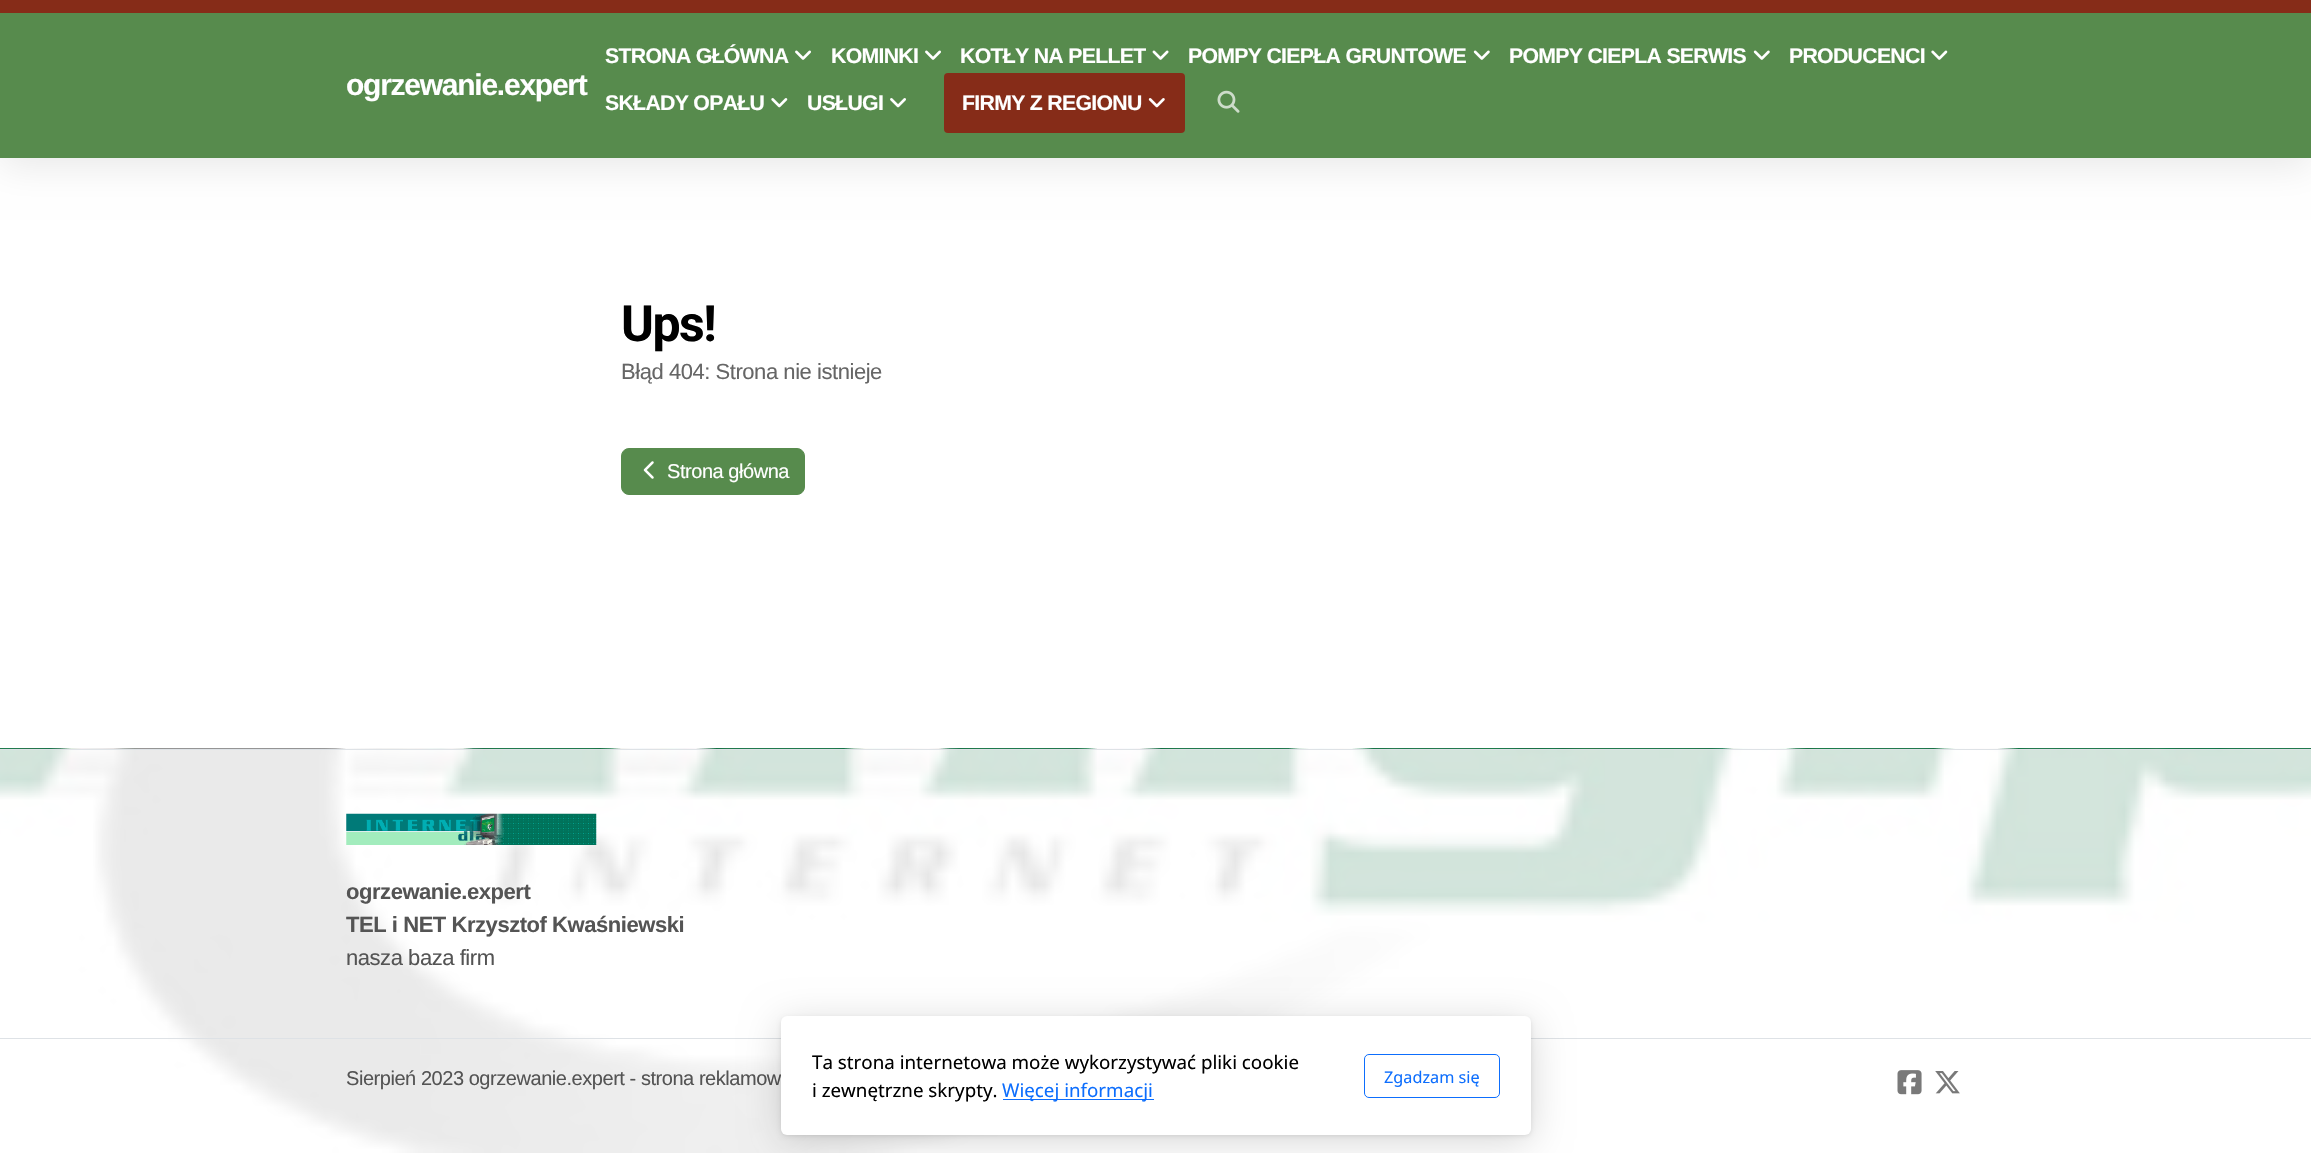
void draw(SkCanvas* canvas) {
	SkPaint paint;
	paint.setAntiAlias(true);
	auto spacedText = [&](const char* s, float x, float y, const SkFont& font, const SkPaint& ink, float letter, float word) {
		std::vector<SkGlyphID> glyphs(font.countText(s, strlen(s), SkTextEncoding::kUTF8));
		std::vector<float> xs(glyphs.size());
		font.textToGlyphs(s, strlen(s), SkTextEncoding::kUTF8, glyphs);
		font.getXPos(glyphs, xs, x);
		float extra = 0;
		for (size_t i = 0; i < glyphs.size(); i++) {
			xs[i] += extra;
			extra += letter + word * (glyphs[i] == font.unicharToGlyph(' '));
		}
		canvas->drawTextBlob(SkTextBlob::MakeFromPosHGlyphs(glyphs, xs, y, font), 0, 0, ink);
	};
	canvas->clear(0xffffffff);
	paint.setColor(0x17000000);
	paint.setMaskFilter(SkMaskFilter::MakeBlur(kNormal_SkBlurStyle, 18));
	canvas->drawRect(SkRect::MakeXYWH(0, 9, 2311, 157), paint);
	paint.setMaskFilter(nullptr);
	paint.setColor(0xff578b4d);
	canvas->drawRect(SkRect::MakeXYWH(0, 13, 2311, 145), paint);
	paint.setColor(0xff862c18);
	canvas->drawRect(SkRect::MakeXYWH(0, 0, 2311, 13), paint);
	SkFont f1(fontMgr->matchFamilyStyle("Liberation Sans", SkFontStyle::Bold()), 30);
	f1.setSubpixel(true);
	paint.setColor(0xffffffff);
	spacedText("ogrzewanie.expert", 346, 95, f1, paint, -1.25, 0);
	SkFont f2(fontMgr->matchFamilyStyle("Liberation Sans", SkFontStyle::Bold()), 21.25);
	f2.setSubpixel(true);
	spacedText("STRONA GŁÓWNA", 605, 63, f2, paint, -0.7, 0);
	canvas->drawImageRect(SkImages::DeferredFromEncodedData(SkData::MakeFromFileName("img1.png")), SkRect::MakeXYWH(795, 50, 16, 10), SkSamplingOptions());
	spacedText("KOMINKI", 831, 63, f2, paint, -0.7, 0);
	canvas->drawImageRect(SkImages::DeferredFromEncodedData(SkData::MakeFromFileName("img1.png")), SkRect::MakeXYWH(925, 50, 16, 10), SkSamplingOptions());
	spacedText("KOTŁY NA PELLET", 960, 63, f2, paint, -0.7, 0);
	canvas->drawImageRect(SkImages::DeferredFromEncodedData(SkData::MakeFromFileName("img2.png")), SkRect::MakeXYWH(1152, 50, 17, 10), SkSamplingOptions());
	spacedText("POMPY CIEPŁA GRUNTOWE", 1188, 63, f2, paint, -0.7, 0);
	canvas->drawImageRect(SkImages::DeferredFromEncodedData(SkData::MakeFromFileName("img3.png")), SkRect::MakeXYWH(1473, 50, 17, 10), SkSamplingOptions());
	spacedText("POMPY CIEPLA SERWIS", 1509, 63, f2, paint, -0.7, 0);
	canvas->drawImageRect(SkImages::DeferredFromEncodedData(SkData::MakeFromFileName("img3.png")), SkRect::MakeXYWH(1753, 50, 17, 10), SkSamplingOptions());
	spacedText("PRODUCENCI", 1789, 63, f2, paint, -0.7, 0);
	canvas->drawImageRect(SkImages::DeferredFromEncodedData(SkData::MakeFromFileName("img4.png")), SkRect::MakeXYWH(1931, 50, 17, 10), SkSamplingOptions());
	spacedText("SKŁADY OPAŁU", 605, 110, f2, paint, -0.7, 0);
	canvas->drawImageRect(SkImages::DeferredFromEncodedData(SkData::MakeFromFileName("img5.png")), SkRect::MakeXYWH(771, 98, 17, 10), SkSamplingOptions());
	spacedText("USŁUGI", 807, 110, f2, paint, -0.7, 0);
	canvas->drawImageRect(SkImages::DeferredFromEncodedData(SkData::MakeFromFileName("img6.png")), SkRect::MakeXYWH(890, 98, 16, 10), SkSamplingOptions());
	paint.setColor(0xff862c18);
	canvas->drawRoundRect(SkRect::MakeXYWH(944, 73, 241, 60), 4, 4, paint);
	paint.setColor(0xffffffff);
	spacedText("FIRMY Z REGIONU", 962, 110, f2, paint, -0.7, 0);
	canvas->drawImageRect(SkImages::DeferredFromEncodedData(SkData::MakeFromFileName("img7.png")), SkRect::MakeXYWH(1148, 98, 17, 10), SkSamplingOptions());
	canvas->drawImageRect(SkImages::DeferredFromEncodedData(SkData::MakeFromFileName("img8.png")), SkRect::MakeXYWH(1217, 90, 23, 23), SkSamplingOptions());
	SkFont f3(fontMgr->matchFamilyStyle("Roboto", SkFontStyle::Bold()), 50);
	f3.setSubpixel(true);
	paint.setColor(0xff000000);
	spacedText("Ups!", 621, 341, f3, paint, -1.5, 0);
	SkFont f4(fontMgr->matchFamilyStyle("Liberation Sans", SkFontStyle::Normal()), 22);
	f4.setSubpixel(true);
	paint.setColor(0xff666666);
	spacedText("Błąd 404: Strona nie istnieje", 621, 379, f4, paint, -0.45, 0);
	paint.setColor(0xff578b4d);
	canvas->drawRoundRect(SkRect::MakeXYWH(621.5, 448.5, 183, 46), 7.5, 7.5, paint);
	paint.setStroke(true);
	paint.setStrokeWidth(1);
	canvas->drawRoundRect(SkRect::MakeXYWH(621.5, 448.5, 183, 46), 7.5, 7.5, paint);
	canvas->drawImageRect(SkImages::DeferredFromEncodedData(SkData::MakeFromFileName("img9.png")), SkRect::MakeXYWH(643, 461, 11, 18), SkSamplingOptions());
	SkFont f5(fontMgr->matchFamilyStyle("Liberation Sans", SkFontStyle::Normal()), 20);
	f5.setSubpixel(true);
	paint.setStroke(false);
	paint.setColor(0xffffffff);
	spacedText("Strona główna", 667, 478, f5, paint, -0.45, 0);
	canvas->drawImageRect(SkImages::DeferredFromEncodedData(SkData::MakeFromFileName("img10.png")), SkRect::MakeXYWH(0, 748, 2311, 405), SkSamplingOptions());
	paint.setColor(0xffdee2e6);
	canvas->drawRect(SkRect::MakeXYWH(0, 749, 2311, 1), paint);
	canvas->drawImageRect(SkImages::DeferredFromEncodedData(SkData::MakeFromFileName("img11.png")), SkRect::MakeXYWH(346, 813, 251, 32), SkSamplingOptions());
	SkFont f6(fontMgr->matchFamilyStyle("Liberation Sans", SkFontStyle::Bold()), 22);
	f6.setSubpixel(true);
	paint.setColor(0xff545454);
	spacedText("ogrzewanie.expert", 346, 899, f6, paint, -0.45, 0);
	spacedText("TEL i NET Krzysztof Kwaśniewski", 346, 932, f6, paint, -0.45, 0);
	spacedText("nasza baza firm", 346, 965, f4, paint, -0.45, 0);
	paint.setColor(0xffdee2e6);
	canvas->drawRect(SkRect::MakeXYWH(0, 1038, 2311, 1), paint);
	paint.setColor(0xff545454);
	spacedText("Sierpień 2023 ogrzewanie.expert - strona reklamow", 346, 1085, f5, paint, -0.45, 0);
	canvas->drawImageRect(SkImages::DeferredFromEncodedData(SkData::MakeFromFileName("img12.png")), SkRect::MakeXYWH(1897, 1070, 25, 25), SkSamplingOptions());
	canvas->drawImageRect(SkImages::DeferredFromEncodedData(SkData::MakeFromFileName("img13.png")), SkRect::MakeXYWH(1935, 1071, 25, 23), SkSamplingOptions());
	paint.setColor(0x29000000);
	paint.setMaskFilter(SkMaskFilter::MakeBlur(kNormal_SkBlurStyle, 19));
	canvas->drawRoundRect(SkRect::MakeXYWH(781, 1023, 750, 118), 6, 6, paint);
	paint.setMaskFilter(nullptr);
	paint.setColor(0x1a000000);
	paint.setMaskFilter(SkMaskFilter::MakeBlur(kNormal_SkBlurStyle, 2));
	canvas->drawRoundRect(SkRect::MakeXYWH(781, 1018, 750, 118), 6, 6, paint);
	paint.setMaskFilter(nullptr);
	paint.setColor(0xffffffff);
	canvas->drawRoundRect(SkRect::MakeXYWH(781, 1016, 750, 119), 6, 6, paint);
	SkFont f7(fontMgr->matchFamilyStyle("Noto Sans", SkFontStyle::Normal()), 18.75);
	f7.setSubpixel(true);
	paint.setColor(0xff000000);
	canvas->drawString("Ta strona internetowa może wykorzystywać pliki cookie", 812, 1069, f7, paint);
	canvas->drawString("i zewnętrzne skrypty.", 812, 1097, f7, paint);
	paint.setColor(0xff0d6efd);
	canvas->drawRect(SkRect::MakeXYWH(1003, 1099, 151, 1), paint);
	canvas->drawString("Więcej informacji", 1002, 1097, f7, paint);
	paint.setStroke(true);
	canvas->drawRoundRect(SkRect::MakeXYWH(1364.5, 1054.5, 135, 43), 4.5, 4.5, paint);
	SkFont f8(fontMgr->matchFamilyStyle("Noto Sans", SkFontStyle::Normal()), 16.25);
	f8.setSubpixel(true);
	paint.setStroke(false);
	canvas->drawString("Zgadzam się", 1384, 1083, f8, paint);
}
